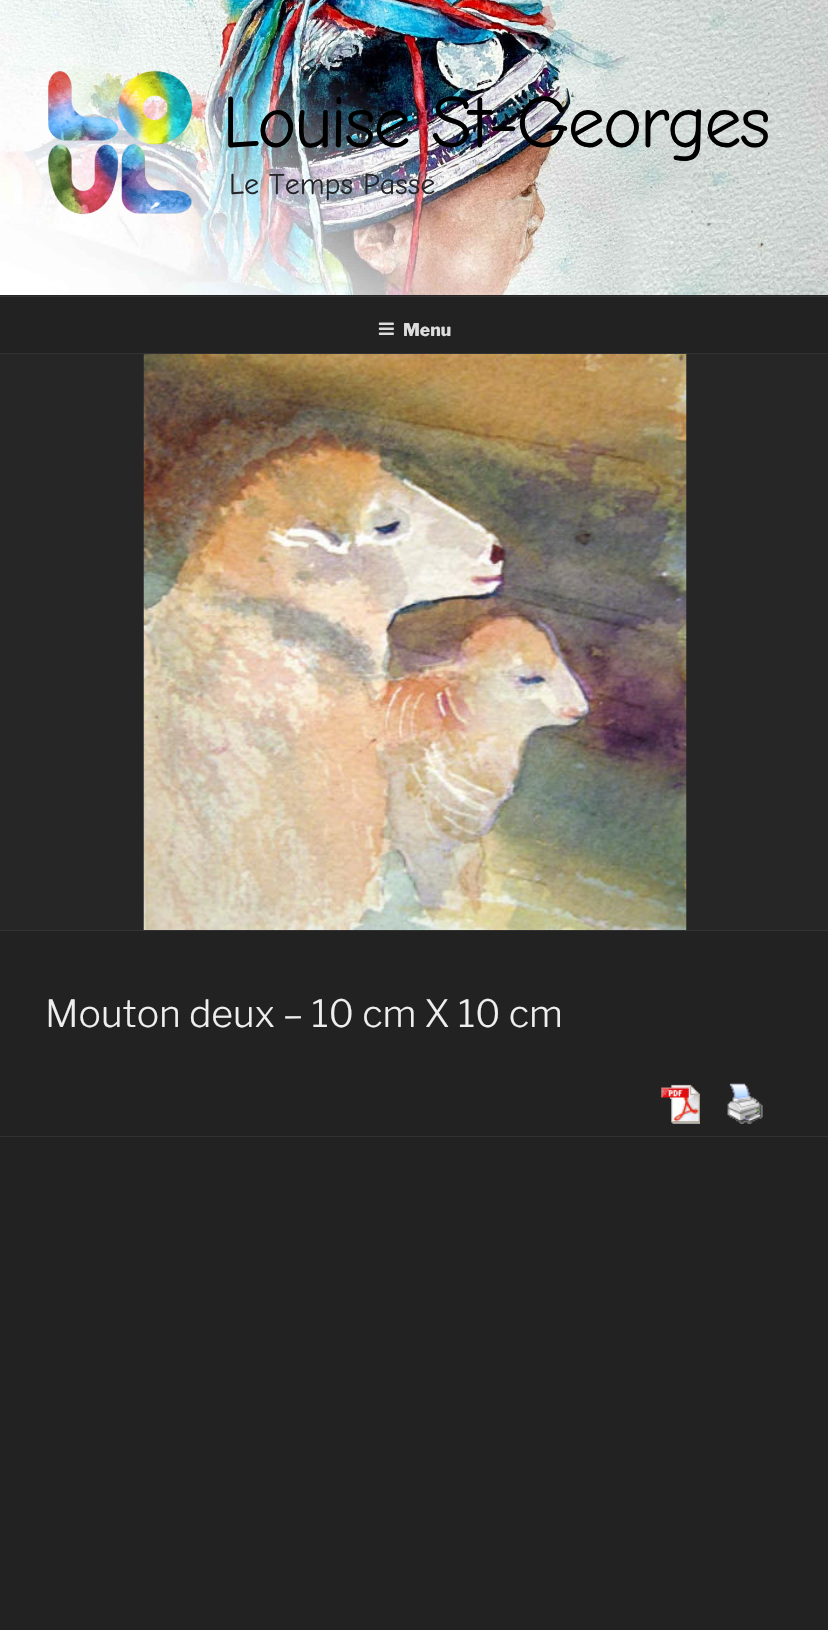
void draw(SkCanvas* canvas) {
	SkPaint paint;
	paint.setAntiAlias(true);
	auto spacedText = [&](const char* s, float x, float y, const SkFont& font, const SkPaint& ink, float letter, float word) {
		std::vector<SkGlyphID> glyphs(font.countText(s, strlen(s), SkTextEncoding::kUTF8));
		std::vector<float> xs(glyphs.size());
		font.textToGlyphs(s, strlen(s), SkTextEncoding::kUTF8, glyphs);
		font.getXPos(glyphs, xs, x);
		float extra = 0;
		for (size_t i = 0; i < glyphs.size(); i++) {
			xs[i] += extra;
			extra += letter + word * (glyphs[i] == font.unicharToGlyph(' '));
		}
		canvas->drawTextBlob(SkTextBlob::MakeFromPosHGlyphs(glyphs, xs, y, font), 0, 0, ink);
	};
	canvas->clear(0xff222222);
	paint.setColor(0xff262626);
	canvas->drawRect(SkRect::MakeXYWH(0, 295, 828, 1), paint);
	canvas->drawImageRect(SkImages::DeferredFromEncodedData(SkData::MakeFromFileName("img1.png")), SkRect::MakeXYWH(0, 0, 828, 295), SkSamplingOptions());
	canvas->drawImageRect(SkImages::DeferredFromEncodedData(SkData::MakeFromFileName("img2.png")), SkRect::MakeXYWH(48, 70, 145, 145), SkSamplingOptions());
	SkFont f1(fontMgr->matchFamilyStyle("Comic Neue", SkFontStyle::Normal()), 75);
	f1.setSubpixel(true);
	paint.setColor(0xff000000);
	spacedText("Louise St-Georges", 222, 147, f1, paint, -2.5, 0);
	SkFont f2(fontMgr->matchFamilyStyle("Comic Neue", SkFontStyle::Normal()), 30);
	f2.setSubpixel(true);
	paint.setColor(0xff242528);
	canvas->drawString("Le Temps Passe", 229, 194, f2, paint);
	paint.setColor(0xff333333);
	canvas->drawRect(SkRect::MakeXYWH(0, 296, 828, 1), paint);
	canvas->drawRect(SkRect::MakeXYWH(0, 353, 828, 1), paint);
	canvas->drawImageRect(SkImages::DeferredFromEncodedData(SkData::MakeFromFileName("img3.png")), SkRect::MakeXYWH(378, 322, 16, 13), SkSamplingOptions());
	SkFont f3(fontMgr->matchFamilyStyle("Libre Franklin", SkFontStyle(800, SkFontStyle::kNormal_Width, SkFontStyle::kUpright_Slant)), 17.5);
	f3.setSubpixel(true);
	paint.setColor(0xffdddddd);
	canvas->drawString("Menu", 403, 336, f3, paint);
	paint.setColor(0xff262626);
	canvas->drawRect(SkRect::MakeXYWH(0, 354, 828, 576), paint);
	paint.setColor(0xff333333);
	canvas->drawRect(SkRect::MakeXYWH(0, 930, 828, 1), paint);
	canvas->drawImageRect(SkImages::DeferredFromEncodedData(SkData::MakeFromFileName("img4.png")), SkRect::MakeXYWH(143, 354, 544, 576), SkSamplingOptions());
	SkFont f4(fontMgr->matchFamilyStyle("Libre Franklin", SkFontStyle(300, SkFontStyle::kNormal_Width, SkFontStyle::kUpright_Slant)), 37.5);
	f4.setSubpixel(true);
	paint.setColor(0xffeeeeee);
	canvas->drawString("Mouton deux – 10 cm X 10 cm", 45, 1027, f4, paint);
	canvas->drawImageRect(SkImages::DeferredFromEncodedData(SkData::MakeFromFileName("img5.png")), SkRect::MakeXYWH(661, 1084, 39, 40), SkSamplingOptions());
	canvas->drawImageRect(SkImages::DeferredFromEncodedData(SkData::MakeFromFileName("img6.png")), SkRect::MakeXYWH(727, 1083, 36, 41), SkSamplingOptions());
	paint.setColor(0xff333333);
	canvas->drawRect(SkRect::MakeXYWH(0, 1136, 828, 1), paint);
}
